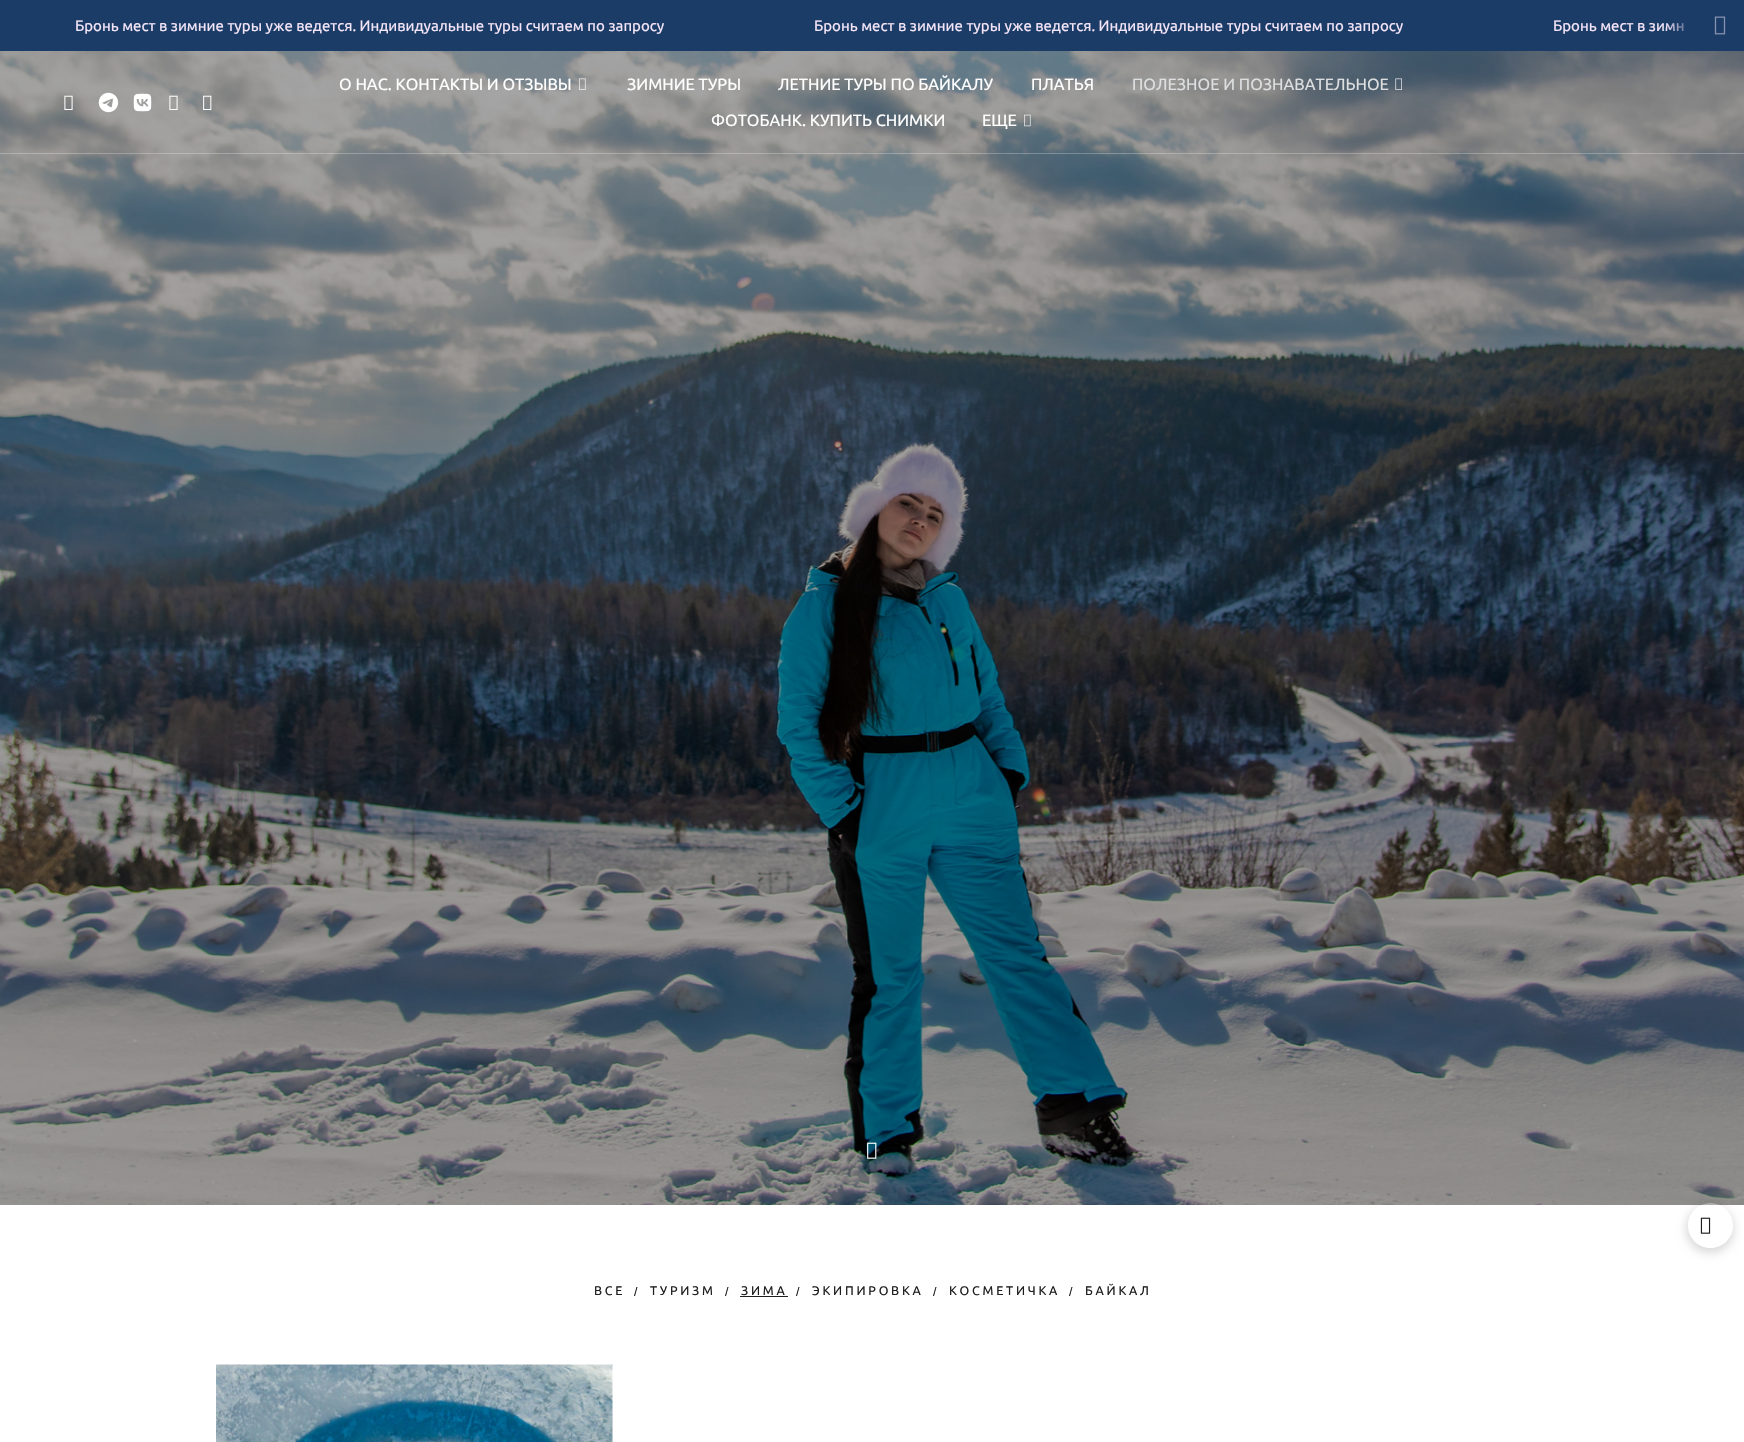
void draw(SkCanvas* canvas) {
	SkPaint paint;
	paint.setAntiAlias(true);
	auto spacedText = [&](const char* s, float x, float y, const SkFont& font, const SkPaint& ink, float letter, float word) {
		std::vector<SkGlyphID> glyphs(font.countText(s, strlen(s), SkTextEncoding::kUTF8));
		std::vector<float> xs(glyphs.size());
		font.textToGlyphs(s, strlen(s), SkTextEncoding::kUTF8, glyphs);
		font.getXPos(glyphs, xs, x);
		float extra = 0;
		for (size_t i = 0; i < glyphs.size(); i++) {
			xs[i] += extra;
			extra += letter + word * (glyphs[i] == font.unicharToGlyph(' '));
		}
		canvas->drawTextBlob(SkTextBlob::MakeFromPosHGlyphs(glyphs, xs, y, font), 0, 0, ink);
	};
	auto svgPath = [&](const char* data, bool evenOdd = false) {
		SkPath result = *SkParsePath::FromSVGString(data);
		if (evenOdd) result.setFillType(SkPathFillType::kEvenOdd);
		return result;
	};
	canvas->clear(0xffffffff);
	paint.setColor(0xff1b3c66);
	canvas->drawRect(SkRect::MakeXYWH(0, 0, 1744, 51), paint);
	SkFont f1(fontMgr->matchFamilyStyle("Ubuntu", SkFontStyle::Normal()), 15);
	f1.setSubpixel(true);
	paint.setColor(0xfff4e5f8);
	canvas->drawString("Бронь мест в зимние туры уже ведется. Индивидуальные туры считаем по запросу", 75, 31, f1, paint);
	canvas->drawString("Бронь мест в зимние туры уже ведется. Индивидуальные туры считаем по запросу", 814, 31, f1, paint);
	canvas->drawString("Бронь мест в зимн", 1553, 31, f1, paint);
	{
		const SkColor colors[] = {0x001b3c66, 0xff1b3c66};
		const float stops[] = {0, 1};
		const SkPoint ends[] = {{1665, 26}, {1695, 26}};
		paint.setShader(SkGradientShader::MakeLinear(ends, colors, stops, 2, SkTileMode::kClamp));
		paint.setAlpha(255);
	}
	canvas->drawRect(SkRect::MakeXYWH(1666, 23, 18, 8), paint);
	canvas->drawImageRect(SkImages::DeferredFromEncodedData(SkData::MakeFromFileName("img1.png")), SkRect::MakeXYWH(1714, 16, 12, 19), SkSamplingOptions());
	canvas->drawImageRect(SkImages::DeferredFromEncodedData(SkData::MakeFromFileName("img2.png")), SkRect::MakeXYWH(0, 51, 1744, 1154), SkSamplingOptions());
	canvas->drawImageRect(SkImages::DeferredFromEncodedData(SkData::MakeFromFileName("img3.png")), SkRect::MakeXYWH(867, 1142, 10, 17), SkSamplingOptions());
	canvas->drawImageRect(SkImages::DeferredFromEncodedData(SkData::MakeFromFileName("img4.png")), SkRect::MakeXYWH(64, 95, 9, 15), SkSamplingOptions());
	canvas->drawImageRect(SkImages::DeferredFromEncodedData(SkData::MakeFromFileName("img5.png")), SkRect::MakeXYWH(98, 92, 21, 21), SkSamplingOptions());
	canvas->drawImageRect(SkImages::DeferredFromEncodedData(SkData::MakeFromFileName("img6.png")), SkRect::MakeXYWH(133, 93, 19, 19), SkSamplingOptions());
	canvas->drawImageRect(SkImages::DeferredFromEncodedData(SkData::MakeFromFileName("img7.png")), SkRect::MakeXYWH(169, 95, 9, 15), SkSamplingOptions());
	canvas->drawImageRect(SkImages::DeferredFromEncodedData(SkData::MakeFromFileName("img8.png")), SkRect::MakeXYWH(203, 95, 9, 15), SkSamplingOptions());
	SkFont f2(fontMgr->matchFamilyStyle("Ubuntu", SkFontStyle::Normal()), 16.25);
	f2.setSubpixel(true);
	paint.setShader(nullptr);
	paint.setColor(0xffffffff);
	canvas->drawString("О НАС. КОНТАКТЫ И ОТЗЫВЫ", 339, 90, f2, paint);
	canvas->drawImageRect(SkImages::DeferredFromEncodedData(SkData::MakeFromFileName("img9.png")), SkRect::MakeXYWH(579, 78, 7, 12), SkSamplingOptions());
	canvas->drawString("ЗИМНИЕ ТУРЫ", 627, 90, f2, paint);
	canvas->drawString("ЛЕТНИЕ ТУРЫ ПО БАЙКАЛУ", 778, 90, f2, paint);
	canvas->drawString("ПЛАТЬЯ", 1031, 90, f2, paint);
	paint.setColor(0xffdddfe0);
	canvas->drawString("ПОЛЕЗНОЕ И ПОЗНАВАТЕЛЬНОЕ", 1132, 90, f2, paint);
	canvas->drawImageRect(SkImages::DeferredFromEncodedData(SkData::MakeFromFileName("img10.png")), SkRect::MakeXYWH(1395, 78, 7, 12), SkSamplingOptions());
	paint.setColor(0xffffffff);
	canvas->drawString("ФОТОБАНК. КУПИТЬ СНИМКИ", 711, 126, f2, paint);
	canvas->drawString("ЕЩЕ", 982, 126, f2, paint);
	canvas->drawImageRect(SkImages::DeferredFromEncodedData(SkData::MakeFromFileName("img11.png")), SkRect::MakeXYWH(1024, 114, 7, 13), SkSamplingOptions());
	paint.setColor(0x40ffffff);
	canvas->drawRect(SkRect::MakeXYWH(0, 153, 1744, 1), paint);
	SkFont f3(fontMgr->matchFamilyStyle("Ubuntu", SkFontStyle::Normal()), 12.5);
	f3.setSubpixel(true);
	paint.setColor(0xff1e1e1e);
	spacedText("ВСЕ", 594, 1295, f3, paint, 2.75, 0);
	SkFont f4(fontMgr->matchFamilyStyle("Liberation Sans", SkFontStyle::Normal()), 12.5);
	f4.setSubpixel(true);
	spacedText("/", 634, 1296, f4, paint, 2.75, 0);
	spacedText("ТУРИЗМ", 650, 1295, f3, paint, 2.75, 0);
	spacedText("/", 725, 1296, f4, paint, 2.75, 0);
	spacedText("ЗИМА", 741, 1295, f3, paint, 2.75, 0);
	canvas->drawRect(SkRect::MakeXYWH(740, 1296, 48, 1), paint);
	spacedText("/", 796, 1296, f4, paint, 2.75, 0);
	spacedText("ЭКИПИРОВКА", 812, 1295, f3, paint, 2.75, 0);
	spacedText("/", 933, 1296, f4, paint, 2.75, 0);
	spacedText("КОСМЕТИЧКА", 949, 1295, f3, paint, 2.75, 0);
	spacedText("/", 1069, 1296, f4, paint, 2.75, 0);
	spacedText("БАЙКАЛ", 1085, 1295, f3, paint, 2.75, 0);
	canvas->drawImageRect(SkImages::DeferredFromEncodedData(SkData::MakeFromFileName("img12.png")), SkRect::MakeXYWH(216, 1364, 397, 78), SkSamplingOptions());
	canvas->save();
	canvas->clipPath(svgPath("M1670 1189H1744V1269H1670ZM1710.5 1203C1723 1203 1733 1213 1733 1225.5C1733 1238 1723 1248 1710.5 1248C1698 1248 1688 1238 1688 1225.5C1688 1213 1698 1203 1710.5 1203Z", true), true);
	paint.setColor(0x26000000);
	paint.setMaskFilter(SkMaskFilter::MakeBlur(kNormal_SkBlurStyle, 5));
	canvas->drawRoundRect(SkRect::MakeXYWH(1686, 1205, 48, 48), 24, 24, paint);
	paint.setMaskFilter(nullptr);
	canvas->restore();
	paint.setColor(0x4dffffff);
	canvas->drawCircle(1710.5, 1225.5, 22.5, paint);
	canvas->drawImageRect(SkImages::DeferredFromEncodedData(SkData::MakeFromFileName("img13.png")), SkRect::MakeXYWH(1700, 1217, 11, 17), SkSamplingOptions());
}
